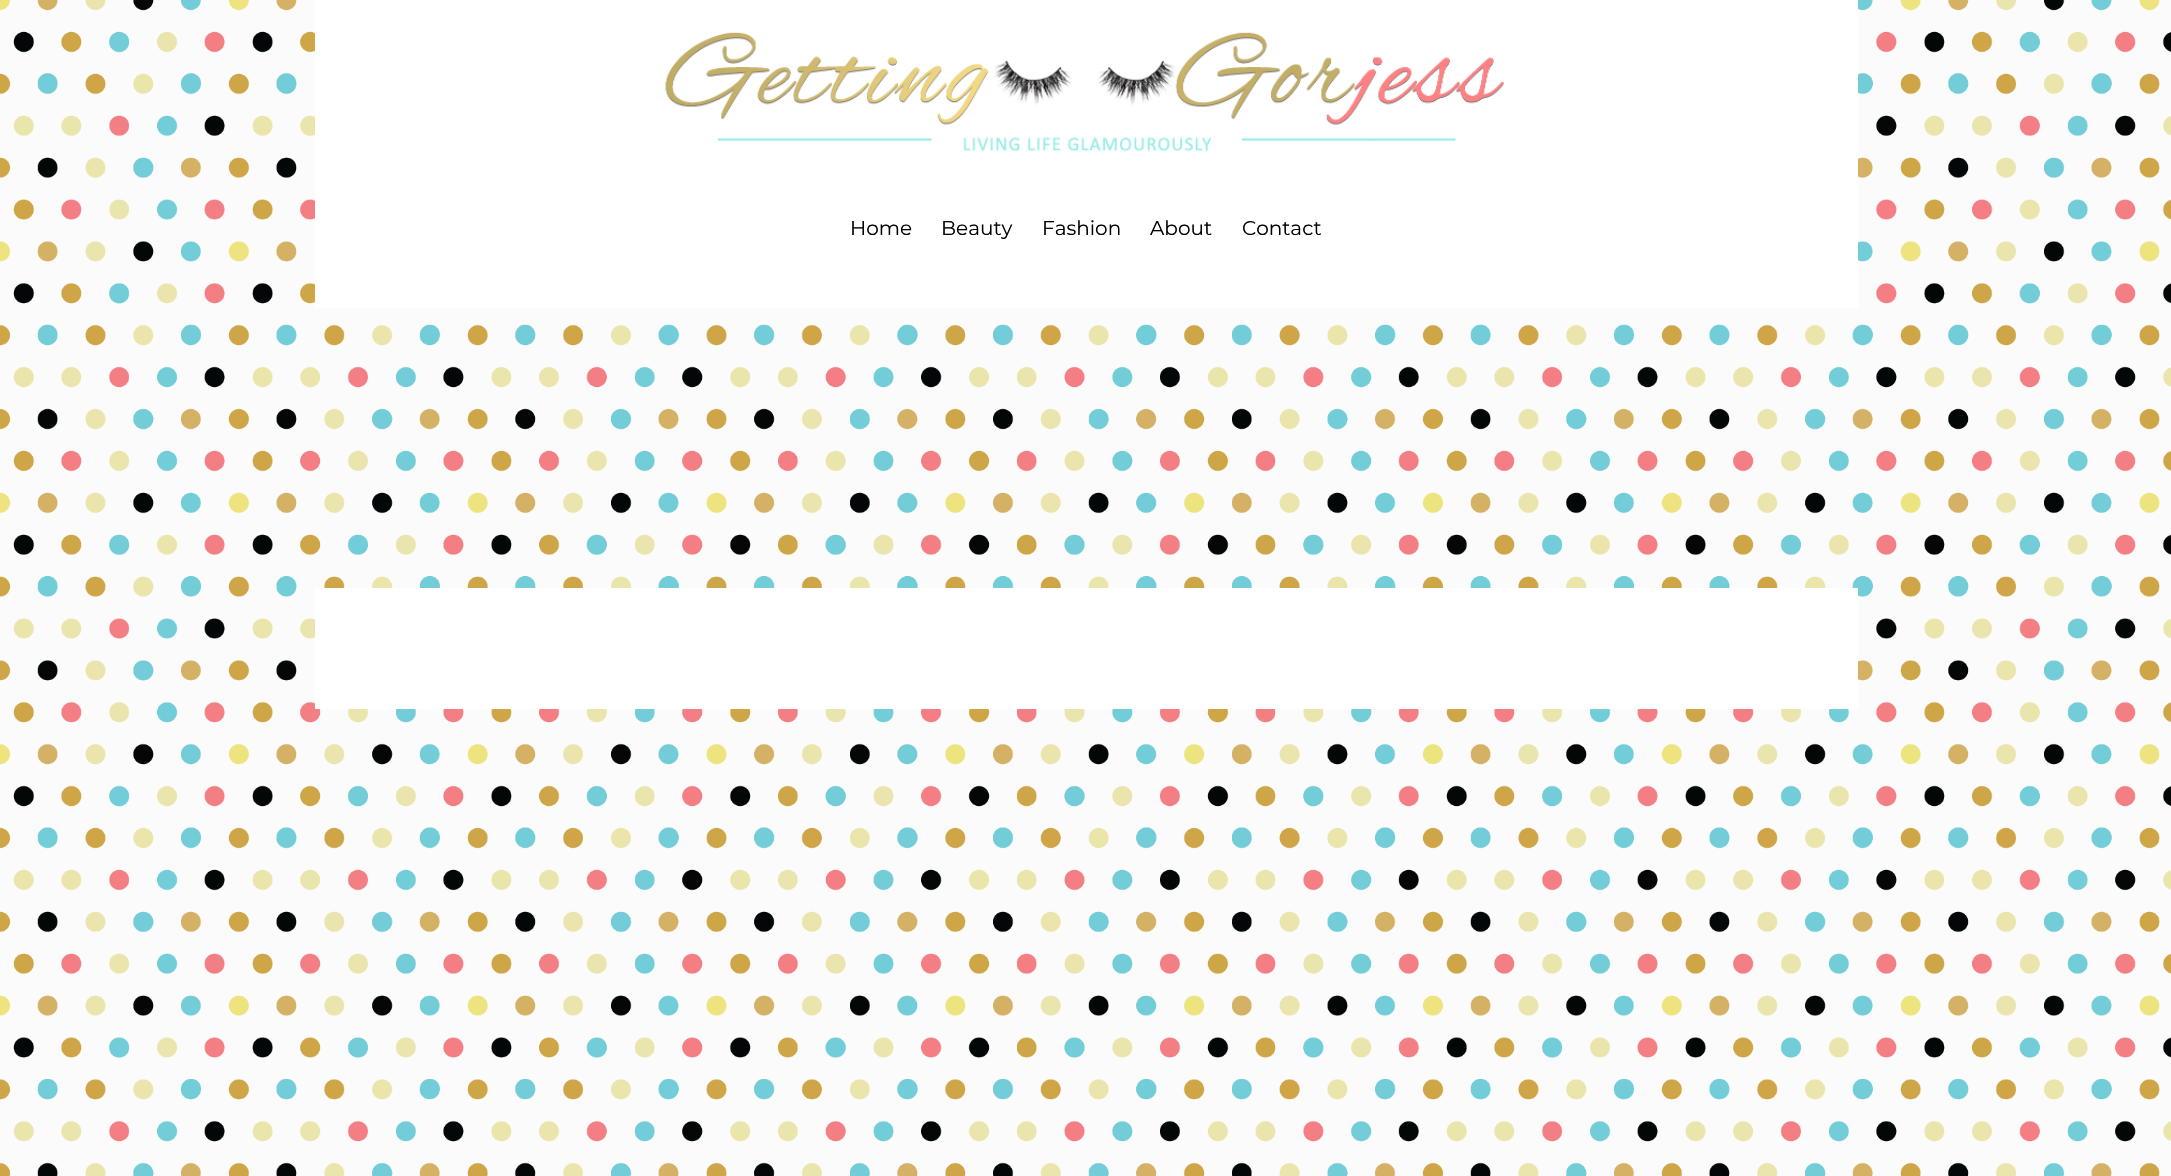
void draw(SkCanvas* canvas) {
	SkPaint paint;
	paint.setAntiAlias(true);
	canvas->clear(0xfffbfbfb);
	canvas->drawImageRect(SkImages::DeferredFromEncodedData(SkData::MakeFromFileName("img1.png")), SkRect::MakeXYWH(0, 0, 2171, 1176), SkSamplingOptions());
	paint.setColor(0xffffffff);
	canvas->drawRect(SkRect::MakeXYWH(315, 0, 1543, 308), paint);
	canvas->drawImageRect(SkImages::DeferredFromEncodedData(SkData::MakeFromFileName("img2.png")), SkRect::MakeXYWH(665, 32, 839, 120), SkSamplingOptions());
	SkFont f1(fontMgr->matchFamilyStyle("Montserrat", SkFontStyle(100, SkFontStyle::kNormal_Width, SkFontStyle::kUpright_Slant)), 20);
	f1.setSubpixel(true);
	paint.setColor(0xff000000);
	canvas->drawString("Home", 850, 235, f1, paint);
	canvas->drawString("Beauty", 941, 235, f1, paint);
	canvas->drawString("Fashion", 1042, 235, f1, paint);
	canvas->drawString("About", 1150, 235, f1, paint);
	canvas->drawString("Contact", 1242, 235, f1, paint);
	paint.setColor(0xffffffff);
	canvas->drawRect(SkRect::MakeXYWH(315, 588, 1543, 121), paint);
}
